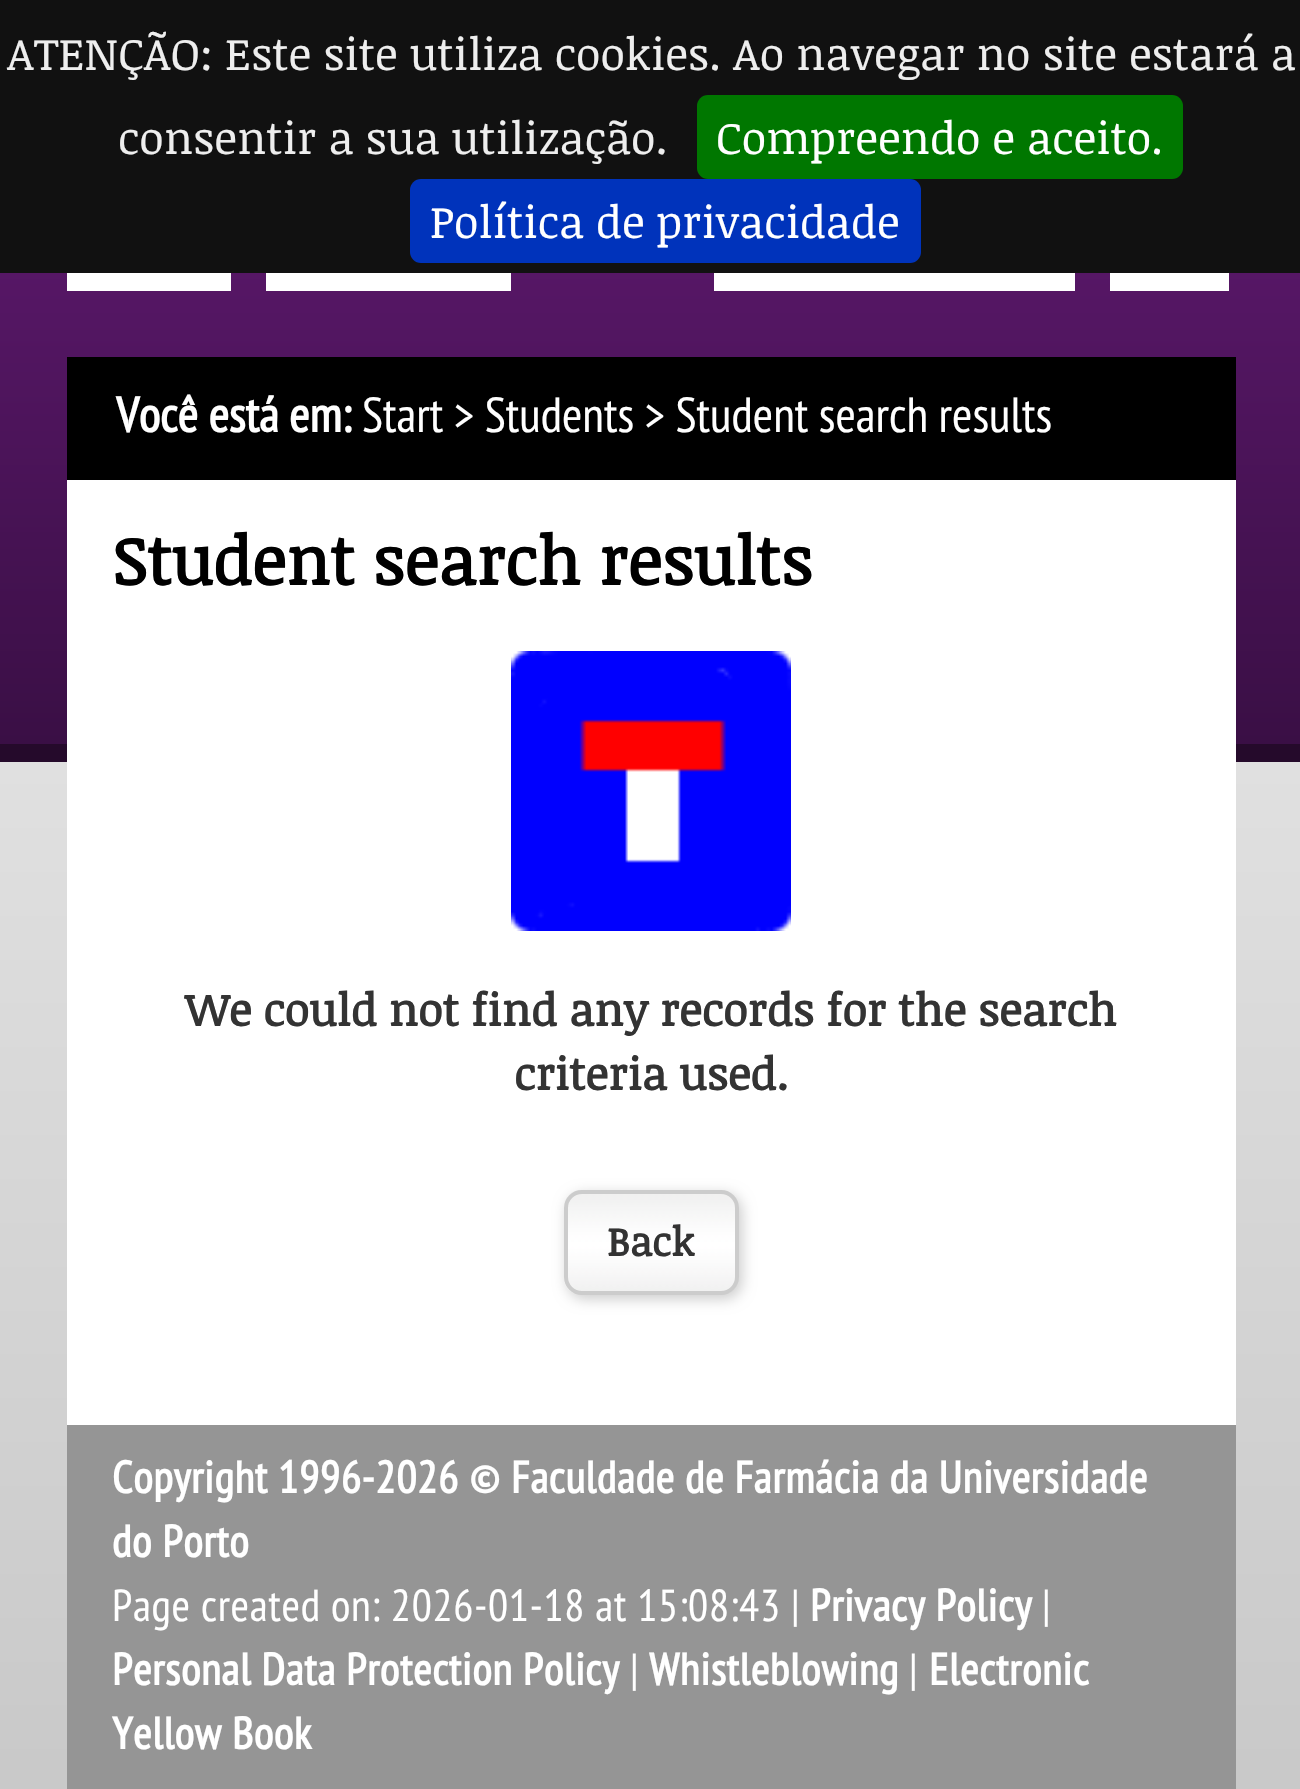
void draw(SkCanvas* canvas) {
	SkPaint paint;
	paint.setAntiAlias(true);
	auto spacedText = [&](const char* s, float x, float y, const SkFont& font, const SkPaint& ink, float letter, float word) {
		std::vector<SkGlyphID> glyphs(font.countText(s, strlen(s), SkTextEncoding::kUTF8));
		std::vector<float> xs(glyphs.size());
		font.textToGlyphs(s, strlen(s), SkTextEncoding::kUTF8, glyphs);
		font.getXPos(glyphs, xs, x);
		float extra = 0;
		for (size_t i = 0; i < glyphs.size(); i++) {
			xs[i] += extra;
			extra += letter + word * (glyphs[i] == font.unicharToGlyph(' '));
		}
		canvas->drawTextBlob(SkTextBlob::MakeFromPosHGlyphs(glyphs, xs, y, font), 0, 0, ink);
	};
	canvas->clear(0xffffffff);
	{
		const SkColor colors[] = {0xff661b78, 0xff3a0f45, 0xff250a2b, 0xff250a2b, 0xffe0e0e0, 0xffc7c7c7};
		const float stops[] = {0, 0.4, 0.4, 0.41, 0.41, 1};
		const SkPoint ends[] = {{651, 0}, {651, 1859}};
		paint.setShader(SkGradientShader::MakeLinear(ends, colors, stops, 6, SkTileMode::kClamp));
		paint.setAlpha(255);
	}
	canvas->drawRect(SkRect::MakeXYWH(0, 273, 1300, 1516), paint);
	paint.setShader(nullptr);
	paint.setColor(0xff111111);
	canvas->drawRect(SkRect::MakeXYWH(0, 0, 1300, 273), paint);
	SkFont f1(fontMgr->matchFamilyStyle("Noticia Text", SkFontStyle::Normal()), 44.8);
	f1.setSubpixel(true);
	paint.setColor(0xffeeeeee);
	canvas->drawString("ATENÇÃO: Este site utiliza cookies. Ao navegar no site estará a", 7, 70, f1, paint);
	canvas->drawString("consentir a sua utilização.", 118, 154, f1, paint);
	paint.setColor(0xff007700);
	canvas->drawRoundRect(SkRect::MakeXYWH(697, 95, 486, 84), 11, 11, paint);
	paint.setColor(0xffffffff);
	canvas->drawString("Compreendo e aceito.", 716, 154, f1, paint);
	paint.setColor(0xff0033bb);
	canvas->drawRoundRect(SkRect::MakeXYWH(410, 179, 511, 84), 11, 11, paint);
	paint.setColor(0xffffffff);
	canvas->drawString("Política de privacidade", 430, 238, f1, paint);
	canvas->drawRect(SkRect::MakeXYWH(67, 273, 164, 18), paint);
	canvas->drawRect(SkRect::MakeXYWH(266, 273, 245, 18), paint);
	canvas->drawRect(SkRect::MakeXYWH(714, 273, 361, 18), paint);
	canvas->drawRect(SkRect::MakeXYWH(1110, 273, 119, 18), paint);
	paint.setColor(0xff000000);
	canvas->drawRect(SkRect::MakeXYWH(67, 357, 1169, 123), paint);
	SkFont f2(fontMgr->matchFamilyStyle("PT Sans Narrow", SkFontStyle::Bold()), 49.25);
	f2.setSubpixel(true);
	paint.setColor(0xffffffff);
	canvas->drawString("Você está em:", 116, 432, f2, paint);
	SkFont f3(fontMgr->matchFamilyStyle("PT Sans Narrow", SkFontStyle::Normal()), 49.25);
	f3.setSubpixel(true);
	canvas->drawString("Start > Students > Student search results", 362, 432, f3, paint);
	canvas->drawRect(SkRect::MakeXYWH(67, 480, 1169, 945), paint);
	SkFont f4(fontMgr->matchFamilyStyle("Noticia Text", SkFontStyle::Bold()), 67.25);
	f4.setSubpixel(true);
	paint.setColor(0xff000000);
	canvas->drawString("Student search results", 112, 585, f4, paint);
	canvas->drawImageRect(SkImages::DeferredFromEncodedData(SkData::MakeFromFileName("img1.png")), SkRect::MakeXYWH(511, 651, 280, 280), SkSamplingOptions());
	SkFont f5(fontMgr->matchFamilyStyle("Noticia Text", SkFontStyle::Bold()), 44.8);
	f5.setSubpixel(true);
	paint.setColor(0xff333333);
	canvas->drawString("We could not find any records for the search", 185, 1026, f5, paint);
	canvas->drawString("criteria used.", 514, 1090, f5, paint);
	paint.setColor(0xffcccccc);
	paint.setMaskFilter(SkMaskFilter::MakeBlur(kNormal_SkBlurStyle, 7));
	canvas->drawRoundRect(SkRect::MakeXYWH(567, 1194, 175, 105), 18, 18, paint);
	paint.setMaskFilter(nullptr);
	canvas->drawImageRect(SkImages::DeferredFromEncodedData(SkData::MakeFromFileName("img2.png")), SkRect::MakeXYWH(564, 1190, 175, 103), SkSamplingOptions());
	paint.setStroke(true);
	paint.setStrokeWidth(4);
	canvas->drawRoundRect(SkRect::MakeXYWH(566, 1192, 171, 101), 16, 16, paint);
	SkFont f6(fontMgr->matchFamilyStyle("Noticia Text", SkFontStyle::Bold()), 40);
	f6.setSubpixel(true);
	paint.setStroke(false);
	paint.setColor(0xff333333);
	canvas->drawString("Back", 607, 1256, f6, paint);
	paint.setColor(0xff959595);
	canvas->drawRect(SkRect::MakeXYWH(67, 1425, 1169, 364), paint);
	SkFont f7(fontMgr->matchFamilyStyle("PT Sans Narrow", SkFontStyle::Bold()), 44.8);
	f7.setSubpixel(true);
	paint.setColor(0xffffffff);
	spacedText("Copyright 1996-2026 © Faculdade de Farmácia da Universidade", 112, 1493, f7, paint, 0.7, 0);
	spacedText("do Porto", 112, 1557, f7, paint, 0.7, 0);
	SkFont f8(fontMgr->matchFamilyStyle("PT Sans Narrow", SkFontStyle::Normal()), 44.8);
	f8.setSubpixel(true);
	spacedText("Page created on: 2026-01-18 at 15:08:43 |", 112, 1621, f8, paint, 0.7, 0);
	spacedText("Privacy Policy", 810, 1621, f7, paint, 0.7, 0);
	spacedText("|", 1042, 1621, f8, paint, 0.7, 0);
	spacedText("Personal Data Protection Policy", 112, 1685, f7, paint, 0.7, 0);
	spacedText("|", 630, 1685, f8, paint, 0.7, 0);
	spacedText("Whistleblowing", 649, 1685, f7, paint, 0.7, 0);
	spacedText("|", 909, 1685, f8, paint, 0.7, 0);
	spacedText("Electronic", 929, 1685, f7, paint, 0.7, 0);
	spacedText("Yellow Book", 112, 1749, f7, paint, 0.7, 0);
}
